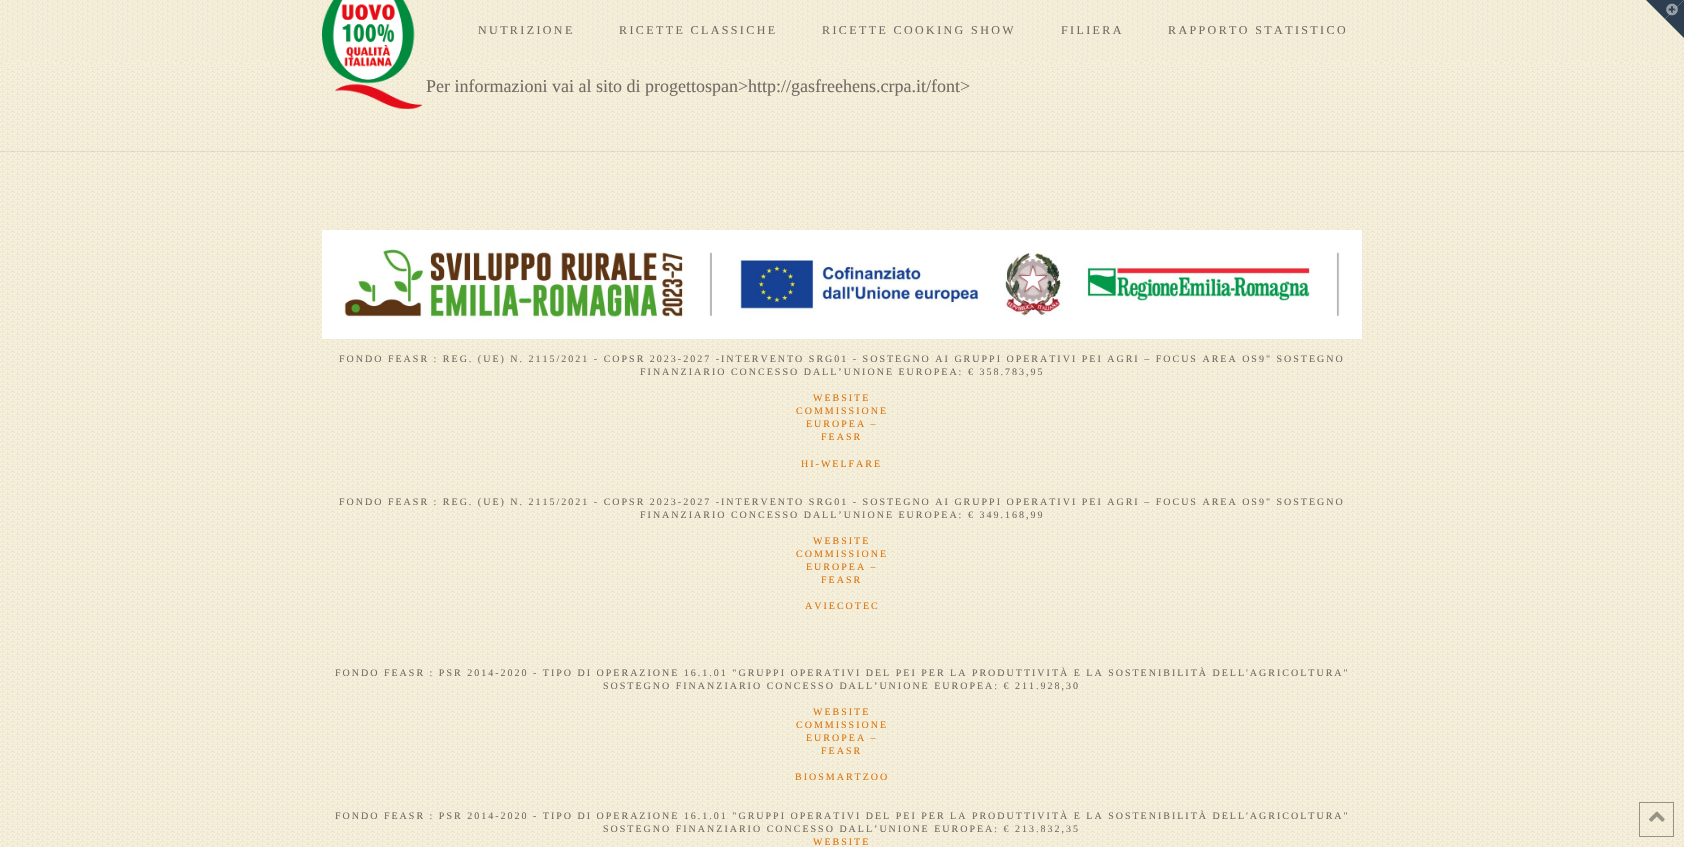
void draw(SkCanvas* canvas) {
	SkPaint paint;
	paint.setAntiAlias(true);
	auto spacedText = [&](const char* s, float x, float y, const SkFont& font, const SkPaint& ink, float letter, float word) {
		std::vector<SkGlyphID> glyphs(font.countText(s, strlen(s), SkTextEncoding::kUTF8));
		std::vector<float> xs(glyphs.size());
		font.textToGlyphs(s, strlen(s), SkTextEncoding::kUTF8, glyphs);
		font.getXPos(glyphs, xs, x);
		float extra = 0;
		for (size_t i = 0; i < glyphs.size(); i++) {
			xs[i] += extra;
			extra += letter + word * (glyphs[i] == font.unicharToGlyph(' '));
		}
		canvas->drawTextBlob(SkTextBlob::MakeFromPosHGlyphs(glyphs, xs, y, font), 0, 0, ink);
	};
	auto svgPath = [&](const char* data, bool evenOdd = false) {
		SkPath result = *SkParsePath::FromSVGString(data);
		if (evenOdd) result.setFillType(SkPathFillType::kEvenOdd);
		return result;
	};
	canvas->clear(0xffffffff);
	canvas->drawImageRect(SkImages::DeferredFromEncodedData(SkData::MakeFromFileName("img1.png")), SkRect::MakeXYWH(0, 60, 1684, 787), SkSamplingOptions());
	canvas->drawImageRect(SkImages::DeferredFromEncodedData(SkData::MakeFromFileName("img3.png")), SkRect::MakeXYWH(0, 0, 1684, 60), SkSamplingOptions());
	paint.setColor(0xff2c3e50);
	canvas->drawPath(svgPath("M1646 0H1684L1665 19Z"), paint);
	canvas->drawPath(svgPath("M1684 0V38L1665 19Z"), paint);
	canvas->drawImageRect(SkImages::DeferredFromEncodedData(SkData::MakeFromFileName("img2.png")), SkRect::MakeXYWH(1666, 3, 12, 13), SkSamplingOptions());
	canvas->drawImageRect(SkImages::DeferredFromEncodedData(SkData::MakeFromFileName("img5.png")), SkRect::MakeXYWH(0, 60, 1684, 9), SkSamplingOptions());
	canvas->drawImageRect(SkImages::DeferredFromEncodedData(SkData::MakeFromFileName("img4.png")), SkRect::MakeXYWH(322, 0, 100, 109), SkSamplingOptions());
	SkFont f1(fontMgr->matchFamilyStyle("Liberation Serif", SkFontStyle::Normal()), 12);
	f1.setSubpixel(true);
	paint.setColor(0xff736c65);
	spacedText("NUTRIZIONE", 478, 34, f1, paint, 2.4, 0);
	spacedText("RICETTE CLASSICHE", 619, 34, f1, paint, 2.4, 0);
	spacedText("RICETTE COOKING SHOW", 822, 34, f1, paint, 2.4, 0);
	spacedText("FILIERA", 1061, 34, f1, paint, 2.4, 0);
	spacedText("RAPPORTO STATISTICO", 1168, 34, f1, paint, 2.4, 0);
	paint.setColor(0x12000000);
	canvas->drawRect(SkRect::MakeXYWH(0, 151, 1684, 1), paint);
	SkFont f2(fontMgr->matchFamilyStyle("Liberation Serif", SkFontStyle::Normal()), 18);
	f2.setSubpixel(true);
	paint.setColor(0xff736c65);
	canvas->drawString("Per informazioni vai al sito di progettospan>http://gasfreehens.crpa.it/font>", 426, 92, f2, paint);
	canvas->drawImageRect(SkImages::DeferredFromEncodedData(SkData::MakeFromFileName("img6.png")), SkRect::MakeXYWH(322, 230, 1040, 109), SkSamplingOptions());
	SkFont f3(fontMgr->matchFamilyStyle("Liberation Serif", SkFontStyle::Normal()), 10);
	f3.setSubpixel(true);
	spacedText("FONDO FEASR : REG. (UE) N. 2115/2021 - COPSR 2023-2027 -INTERVENTO SRG01 - SOSTEGNO AI GRUPPI OPERATIVI PEI AGRI – FOCUS AREA OS9\" SOSTEGNO", 339, 362, f3, paint, 2, 0);
	spacedText("FINANZIARIO CONCESSO DALL’UNIONE EUROPEA: € 358.783,95", 640, 375, f3, paint, 2, 0);
	paint.setColor(0xffdb750f);
	spacedText("WEBSITE", 813, 401, f3, paint, 2, 0);
	spacedText("COMMISSIONE", 796, 414, f3, paint, 2, 0);
	spacedText("EUROPEA –", 806, 427, f3, paint, 2, 0);
	spacedText("FEASR", 821, 440, f3, paint, 2, 0);
	spacedText("HI-WELFARE", 801, 467, f3, paint, 2, 0);
	paint.setColor(0xff736c65);
	spacedText("FONDO FEASR : REG. (UE) N. 2115/2021 - COPSR 2023-2027 -INTERVENTO SRG01 - SOSTEGNO AI GRUPPI OPERATIVI PEI AGRI – FOCUS AREA OS9\" SOSTEGNO", 339, 505, f3, paint, 2, 0);
	spacedText("FINANZIARIO CONCESSO DALL’UNIONE EUROPEA: € 349.168,99", 640, 518, f3, paint, 2, 0);
	paint.setColor(0xffdb750f);
	spacedText("WEBSITE", 813, 544, f3, paint, 2, 0);
	spacedText("COMMISSIONE", 796, 557, f3, paint, 2, 0);
	spacedText("EUROPEA –", 806, 570, f3, paint, 2, 0);
	spacedText("FEASR", 821, 583, f3, paint, 2, 0);
	spacedText("AVIECOTEC", 805, 609, f3, paint, 2, 0);
	paint.setColor(0xff736c65);
	spacedText("FONDO FEASR : PSR 2014-2020 - TIPO DI OPERAZIONE 16.1.01 \"GRUPPI OPERATIVI DEL PEI PER LA PRODUTTIVITÀ E LA SOSTENIBILITÀ DELL'AGRICOLTURA\"", 335, 676, f3, paint, 2, 0);
	spacedText("SOSTEGNO FINANZIARIO CONCESSO DALL’UNIONE EUROPEA: € 211.928,30", 603, 689, f3, paint, 2, 0);
	paint.setColor(0xffdb750f);
	spacedText("WEBSITE", 813, 715, f3, paint, 2, 0);
	spacedText("COMMISSIONE", 796, 728, f3, paint, 2, 0);
	spacedText("EUROPEA –", 806, 741, f3, paint, 2, 0);
	spacedText("FEASR", 821, 754, f3, paint, 2, 0);
	spacedText("BIOSMARTZOO", 795, 780, f3, paint, 2, 0);
	paint.setColor(0xff736c65);
	spacedText("FONDO FEASR : PSR 2014-2020 - TIPO DI OPERAZIONE 16.1.01 \"GRUPPI OPERATIVI DEL PEI PER LA PRODUTTIVITÀ E LA SOSTENIBILITÀ DELL'AGRICOLTURA\"", 335, 819, f3, paint, 2, 0);
	spacedText("SOSTEGNO FINANZIARIO CONCESSO DALL’UNIONE EUROPEA: € 213.832,35", 603, 832, f3, paint, 2, 0);
	paint.setColor(0xffdb750f);
	spacedText("WEBSITE", 813, 845, f3, paint, 2, 0);
	paint.setStroke(true);
	paint.setStrokeWidth(1);
	paint.setColor(0x61000000);
	canvas->drawRect(SkRect::MakeXYWH(1639.5, 802.5, 34, 34), paint);
	canvas->drawImageRect(SkImages::DeferredFromEncodedData(SkData::MakeFromFileName("img7.png")), SkRect::MakeXYWH(1649, 811, 16, 11), SkSamplingOptions());
}
